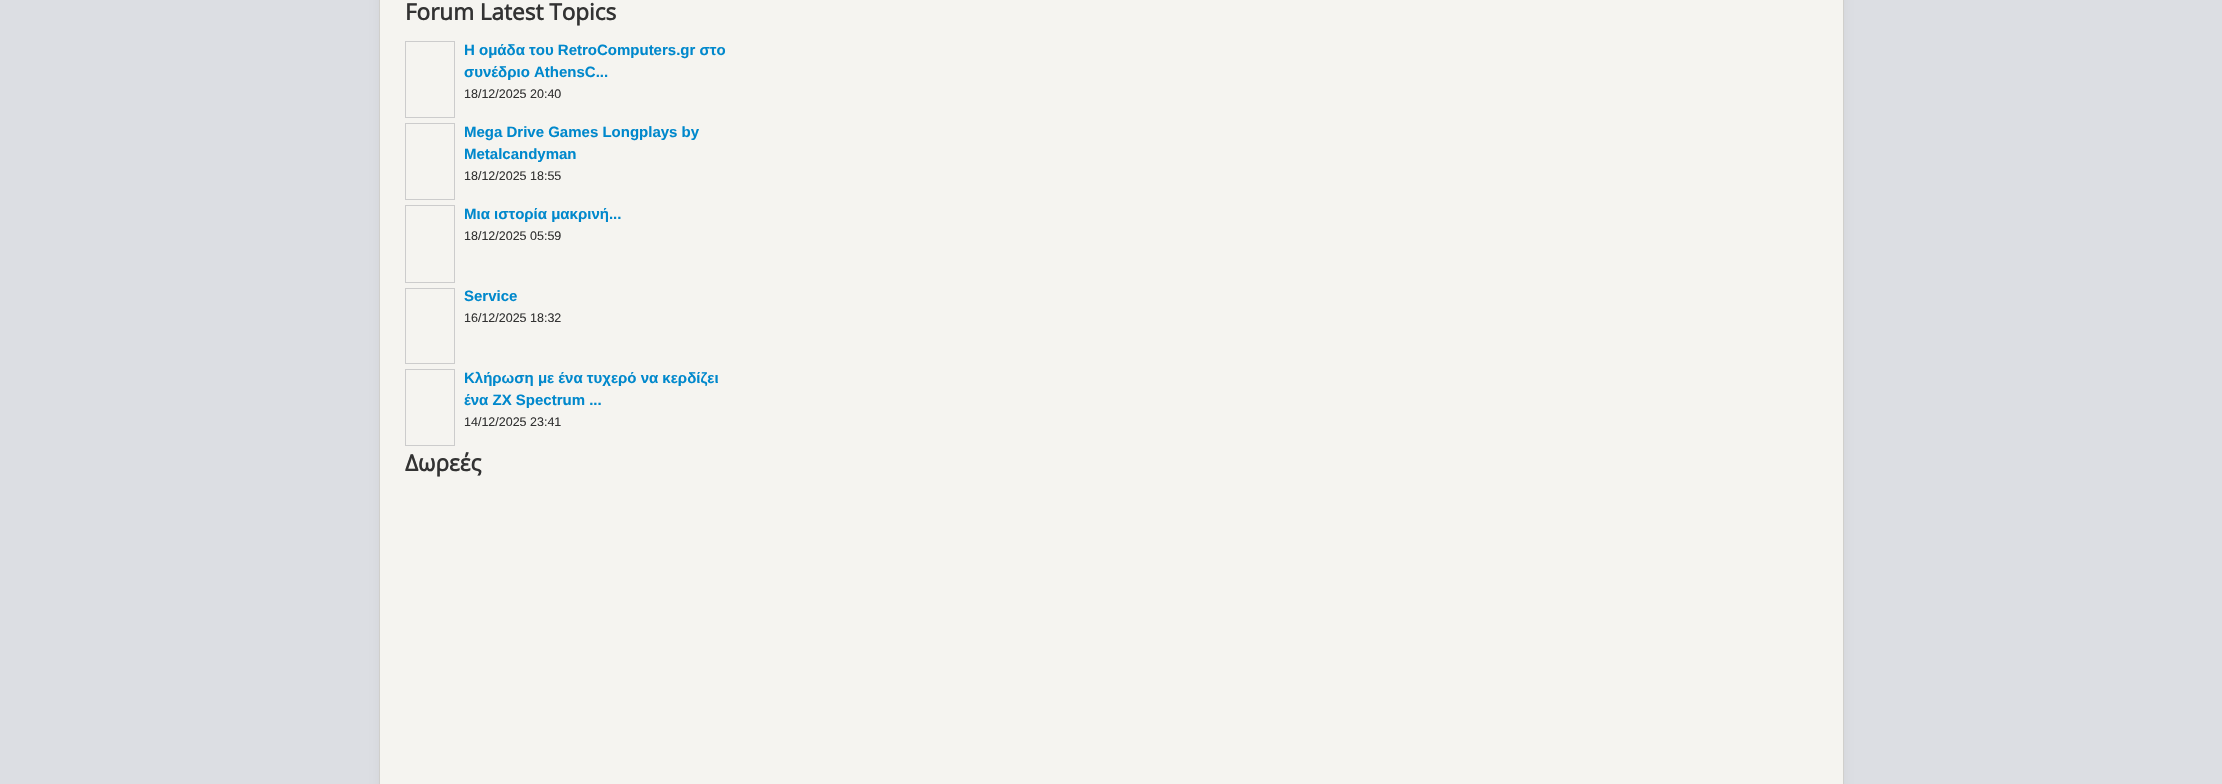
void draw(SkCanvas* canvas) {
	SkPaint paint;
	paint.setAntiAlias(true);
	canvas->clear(0xffdcdee3);
	paint.setColor(0x0d000000);
	paint.setMaskFilter(SkMaskFilter::MakeBlur(kNormal_SkBlurStyle, 4));
	canvas->drawRoundRect(SkRect::MakeXYWH(379, -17, 1465, 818), 5, 5, paint);
	paint.setMaskFilter(nullptr);
	paint.setColor(0xfff5f4f0);
	canvas->drawRect(SkRect::MakeXYWH(379.5, -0.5, 1464, 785), paint);
	paint.setStroke(true);
	paint.setStrokeWidth(1);
	paint.setColor(0xffd0cfcc);
	canvas->drawRect(SkRect::MakeXYWH(379.5, -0.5, 1464, 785), paint);
	SkFont f1(fontMgr->matchFamilyStyle("Open Sans", SkFontStyle::Bold()), 22.5);
	f1.setSubpixel(true);
	paint.setStroke(false);
	paint.setColor(0xff333333);
	canvas->drawString("Forum Latest Topics", 405, 20, f1, paint);
	paint.setStroke(true);
	paint.setColor(0xffcccccc);
	canvas->drawRect(SkRect::MakeXYWH(405.5, 41.5, 49, 76), paint);
	SkFont f2(fontMgr->matchFamilyStyle("Liberation Sans", SkFontStyle::Bold()), 15);
	f2.setSubpixel(true);
	paint.setStroke(false);
	paint.setColor(0xff0088cc);
	canvas->drawString("Η ομάδα του RetroComputers.gr στο", 464, 55, f2, paint);
	canvas->drawString("συνέδριο AthensC...", 464, 77, f2, paint);
	SkFont f3(fontMgr->matchFamilyStyle("Liberation Sans", SkFontStyle::Normal()), 12.5);
	f3.setSubpixel(true);
	paint.setColor(0xff333333);
	canvas->drawString("18/12/2025 20:40", 464, 98, f3, paint);
	paint.setStroke(true);
	paint.setColor(0xffcccccc);
	canvas->drawRect(SkRect::MakeXYWH(405.5, 123.5, 49, 76), paint);
	paint.setStroke(false);
	paint.setColor(0xff0088cc);
	canvas->drawString("Mega Drive Games Longplays by", 464, 137, f2, paint);
	canvas->drawString("Metalcandyman", 464, 159, f2, paint);
	paint.setColor(0xff333333);
	canvas->drawString("18/12/2025 18:55", 464, 180, f3, paint);
	paint.setStroke(true);
	paint.setColor(0xffcccccc);
	canvas->drawRect(SkRect::MakeXYWH(405.5, 205.5, 49, 77), paint);
	paint.setStroke(false);
	paint.setColor(0xff0088cc);
	canvas->drawString("Μια ιστορία μακρινή...", 464, 219, f2, paint);
	paint.setColor(0xff333333);
	canvas->drawString("18/12/2025 05:59", 464, 240, f3, paint);
	paint.setStroke(true);
	paint.setColor(0xffcccccc);
	canvas->drawRect(SkRect::MakeXYWH(405.5, 288.5, 49, 75), paint);
	paint.setStroke(false);
	paint.setColor(0xff0088cc);
	canvas->drawString("Service", 464, 301, f2, paint);
	paint.setColor(0xff333333);
	canvas->drawString("16/12/2025 18:32", 464, 322, f3, paint);
	paint.setStroke(true);
	paint.setColor(0xffcccccc);
	canvas->drawRect(SkRect::MakeXYWH(405.5, 369.5, 49, 76), paint);
	paint.setStroke(false);
	paint.setColor(0xff0088cc);
	canvas->drawString("Κλήρωση με ένα τυχερό να κερδίζει", 464, 383, f2, paint);
	canvas->drawString("ένα ZX Spectrum ...", 464, 405, f2, paint);
	paint.setColor(0xff333333);
	canvas->drawString("14/12/2025 23:41", 464, 426, f3, paint);
	canvas->drawString("Δωρεές", 405, 471, f1, paint);
}
